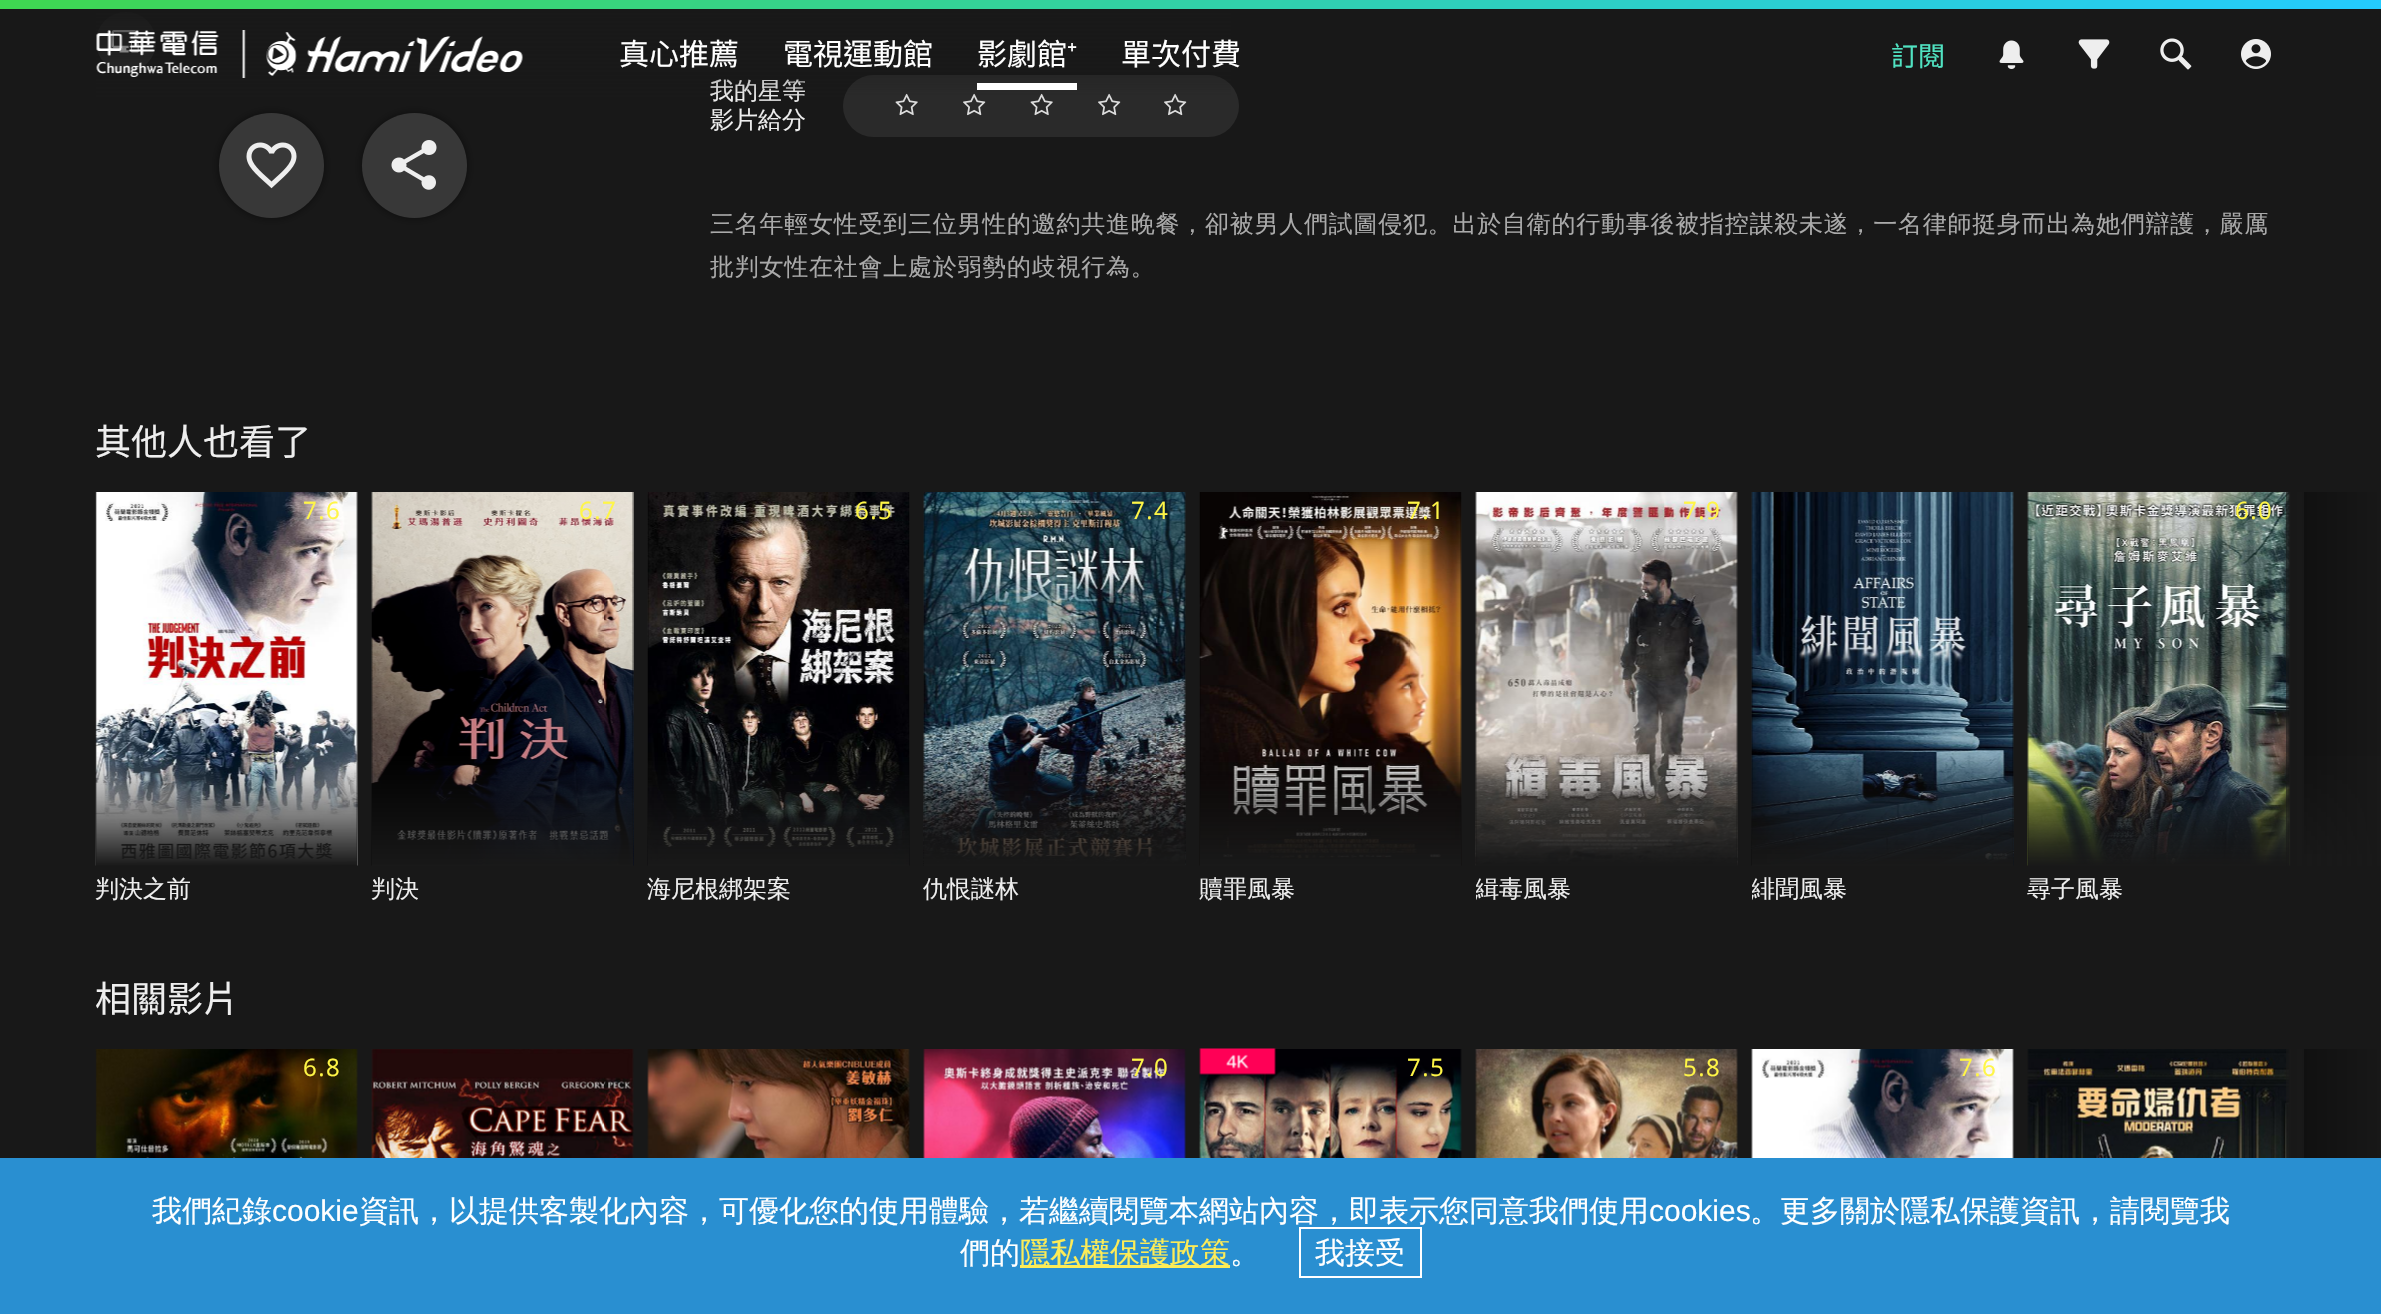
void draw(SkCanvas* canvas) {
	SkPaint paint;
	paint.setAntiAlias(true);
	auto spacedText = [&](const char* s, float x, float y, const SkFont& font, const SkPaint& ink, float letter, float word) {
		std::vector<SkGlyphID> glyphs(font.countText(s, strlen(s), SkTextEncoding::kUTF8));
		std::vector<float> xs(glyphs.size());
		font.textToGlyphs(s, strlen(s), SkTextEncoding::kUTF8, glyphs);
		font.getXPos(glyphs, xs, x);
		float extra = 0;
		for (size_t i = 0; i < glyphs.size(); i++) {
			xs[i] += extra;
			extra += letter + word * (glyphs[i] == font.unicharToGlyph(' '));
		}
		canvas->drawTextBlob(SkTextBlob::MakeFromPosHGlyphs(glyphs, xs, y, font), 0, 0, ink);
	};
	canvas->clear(0xff181818);
	paint.setColor(0xff2a2a2a);
	canvas->drawCircle(126, 42, 30, paint);
	canvas->drawImageRect(SkImages::DeferredFromEncodedData(SkData::MakeFromFileName("img6.png")), SkRect::MakeXYWH(111, 30, 28, 23), SkSamplingOptions());
	SkFont f1(fontMgr->matchFamilyStyle("WenQuanYi Zen Hei", SkFontStyle(500, SkFontStyle::kNormal_Width, SkFontStyle::kUpright_Slant)), 24);
	f1.setSubpixel(true);
	paint.setColor(0xffeeeeee);
	canvas->drawString("我的星等", 710, 99, f1, paint);
	paint.setColor(0xff2a2a2a);
	canvas->drawRoundRect(SkRect::MakeXYWH(843, 75, 396, 62), 31, 31, paint);
	canvas->drawImageRect(SkImages::DeferredFromEncodedData(SkData::MakeFromFileName("img9.png")), SkRect::MakeXYWH(895, 93, 23, 23), SkSamplingOptions());
	canvas->drawImageRect(SkImages::DeferredFromEncodedData(SkData::MakeFromFileName("img10.png")), SkRect::MakeXYWH(963, 93, 23, 23), SkSamplingOptions());
	canvas->drawImageRect(SkImages::DeferredFromEncodedData(SkData::MakeFromFileName("img9.png")), SkRect::MakeXYWH(1030, 93, 23, 23), SkSamplingOptions());
	canvas->drawImageRect(SkImages::DeferredFromEncodedData(SkData::MakeFromFileName("img10.png")), SkRect::MakeXYWH(1098, 93, 23, 23), SkSamplingOptions());
	canvas->drawImageRect(SkImages::DeferredFromEncodedData(SkData::MakeFromFileName("img10.png")), SkRect::MakeXYWH(1164, 93, 23, 23), SkSamplingOptions());
	{
		const SkColor colors[] = {0xff181818, 0x00181818};
		const float stops[] = {0, 1};
		const SkPoint ends[] = {{1191, 0}, {1191, 99}};
		paint.setShader(SkGradientShader::MakeLinear(ends, colors, stops, 2, SkTileMode::kClamp));
		paint.setAlpha(255);
	}
	canvas->drawRect(SkRect::MakeXYWH(96, 12, 1135, 85), paint);
	{
		const SkColor colors[] = {0xff3fd750, 0xff24cbff};
		const float stops[] = {0, 1};
		const SkPoint ends[] = {{587, -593}, {1795, 602}};
		paint.setShader(SkGradientShader::MakeLinear(ends, colors, stops, 2, SkTileMode::kClamp));
		paint.setAlpha(255);
	}
	canvas->drawRect(SkRect::MakeXYWH(0, 0, 2381, 9), paint);
	canvas->drawImageRect(SkImages::DeferredFromEncodedData(SkData::MakeFromFileName("img1.png")), SkRect::MakeXYWH(96, 30, 427, 48), SkSamplingOptions());
	SkFont f2(fontMgr->matchFamilyStyle("Noto Sans TC", SkFontStyle(100, SkFontStyle::kNormal_Width, SkFontStyle::kUpright_Slant)), 30);
	f2.setSubpixel(true);
	paint.setShader(nullptr);
	paint.setColor(0xffffffff);
	canvas->drawString("真心推薦", 619, 65, f2, paint);
	canvas->drawString("電視運動館", 783, 65, f2, paint);
	canvas->drawRect(SkRect::MakeXYWH(977, 83, 100, 7), paint);
	canvas->drawString("影劇館", 977, 65, f2, paint);
	SkFont f3(fontMgr->matchFamilyStyle("Noto Sans", SkFontStyle::Normal()), 30);
	f3.setSubpixel(true);
	canvas->drawString("⁺", 1067, 65, f3, paint);
	canvas->drawString("單次付費", 1121, 65, f2, paint);
	SkFont f4(fontMgr->matchFamilyStyle("Noto Sans TC", SkFontStyle(100, SkFontStyle::kNormal_Width, SkFontStyle::kUpright_Slant)), 27);
	f4.setSubpixel(true);
	paint.setColor(0xff50e3c2);
	canvas->drawString("訂閱", 1891, 66, f4, paint);
	canvas->drawImageRect(SkImages::DeferredFromEncodedData(SkData::MakeFromFileName("img2.png")), SkRect::MakeXYWH(1999, 40, 25, 29), SkSamplingOptions());
	canvas->drawImageRect(SkImages::DeferredFromEncodedData(SkData::MakeFromFileName("img3.png")), SkRect::MakeXYWH(2078, 39, 32, 30), SkSamplingOptions());
	canvas->drawImageRect(SkImages::DeferredFromEncodedData(SkData::MakeFromFileName("img4.png")), SkRect::MakeXYWH(2160, 38, 32, 32), SkSamplingOptions());
	canvas->drawImageRect(SkImages::DeferredFromEncodedData(SkData::MakeFromFileName("img5.png")), SkRect::MakeXYWH(2241, 39, 30, 30), SkSamplingOptions());
	paint.setColor(0x80000000);
	paint.setMaskFilter(SkMaskFilter::MakeBlur(kNormal_SkBlurStyle, 4));
	canvas->drawRoundRect(SkRect::MakeXYWH(219, 113, 105, 105), 52.5, 52.5, paint);
	paint.setMaskFilter(nullptr);
	paint.setColor(0xff383838);
	canvas->drawCircle(271.5, 165.5, 52.5, paint);
	canvas->drawImageRect(SkImages::DeferredFromEncodedData(SkData::MakeFromFileName("img7.png")), SkRect::MakeXYWH(246, 142, 51, 47), SkSamplingOptions());
	paint.setColor(0x80000000);
	paint.setMaskFilter(SkMaskFilter::MakeBlur(kNormal_SkBlurStyle, 4));
	canvas->drawRoundRect(SkRect::MakeXYWH(362, 113, 105, 105), 52.5, 52.5, paint);
	paint.setMaskFilter(nullptr);
	paint.setColor(0xff383838);
	canvas->drawCircle(414.5, 165.5, 52.5, paint);
	canvas->drawImageRect(SkImages::DeferredFromEncodedData(SkData::MakeFromFileName("img8.png")), SkRect::MakeXYWH(391, 140, 46, 50), SkSamplingOptions());
	paint.setColor(0xffeeeeee);
	canvas->drawString("影片給分", 710, 128, f1, paint);
	paint.setColor(0xffaaaaaa);
	spacedText("三名年輕女性受到三位男性的邀約共進晚餐，卻被男人們試圖侵犯。出於自衛的行動事後被指控謀殺未遂，一名律師挺身而出為她們辯護，嚴厲", 710, 232, f1, paint, 0.75, 0);
	spacedText("批判女性在社會上處於弱勢的歧視行為。", 710, 275, f1, paint, 0.75, 0);
	SkFont f5(fontMgr->matchFamilyStyle("Noto Sans TC", SkFontStyle(100, SkFontStyle::kNormal_Width, SkFontStyle::kUpright_Slant)), 36);
	f5.setSubpixel(true);
	paint.setColor(0xffeeeeee);
	canvas->drawString("其他人也看了", 95, 455, f5, paint);
	paint.setColor(0xff000000);
	canvas->drawRect(SkRect::MakeXYWH(96, 492, 261, 374), paint);
	canvas->drawImageRect(SkImages::DeferredFromEncodedData(SkData::MakeFromFileName("img11.png")), SkRect::MakeXYWH(95, 492, 263, 374), SkSamplingOptions());
	{
		const SkColor colors[] = {0x99181818, 0xff181818};
		const float stops[] = {0, 1};
		const SkPoint ends[] = {{96, 699}, {0, 699}};
		paint.setShader(SkGradientShader::MakeLinear(ends, colors, stops, 2, SkTileMode::kClamp));
		paint.setAlpha(255);
	}
	canvas->drawRect(SkRect::MakeXYWH(95, 492, 1, 374), paint);
	SkFont f6(fontMgr->matchFamilyStyle("Open Sans", SkFontStyle::Normal()), 24);
	f6.setSubpixel(true);
	paint.setShader(nullptr);
	paint.setColor(0xfffff646);
	spacedText("7.6", 303, 519, f6, paint, 1.5, 0);
	{
		const SkColor colors[] = {0x00181818, 0xff181818};
		const float stops[] = {0.7, 1};
		const SkPoint ends[] = {{226, 492}, {227, 866}};
		paint.setShader(SkGradientShader::MakeLinear(ends, colors, stops, 2, SkTileMode::kClamp));
		paint.setAlpha(255);
	}
	canvas->drawRect(SkRect::MakeXYWH(96, 756, 261, 110), paint);
	paint.setShader(nullptr);
	paint.setColor(0xffeeeeee);
	canvas->drawString("判決之前", 95, 897, f1, paint);
	paint.setColor(0xff000000);
	canvas->drawRect(SkRect::MakeXYWH(372, 492, 261, 373), paint);
	canvas->drawImageRect(SkImages::DeferredFromEncodedData(SkData::MakeFromFileName("img12.png")), SkRect::MakeXYWH(371, 492, 263, 374), SkSamplingOptions());
	paint.setColor(0xfffff646);
	spacedText("6.7", 579, 519, f6, paint, 1.5, 0);
	{
		const SkColor colors[] = {0x00181818, 0xff181818};
		const float stops[] = {0.7, 1};
		const SkPoint ends[] = {{503, 492}, {503, 866}};
		paint.setShader(SkGradientShader::MakeLinear(ends, colors, stops, 2, SkTileMode::kClamp));
		paint.setAlpha(255);
	}
	canvas->drawRect(SkRect::MakeXYWH(372, 756, 261, 110), paint);
	paint.setShader(nullptr);
	paint.setColor(0xffeeeeee);
	canvas->drawString("判決", 371, 897, f1, paint);
	paint.setColor(0xff000000);
	canvas->drawRect(SkRect::MakeXYWH(648, 492, 261, 373), paint);
	canvas->drawImageRect(SkImages::DeferredFromEncodedData(SkData::MakeFromFileName("img13.png")), SkRect::MakeXYWH(647, 492, 263, 374), SkSamplingOptions());
	paint.setColor(0xfffff646);
	spacedText("6.5", 855, 519, f6, paint, 1.5, 0);
	{
		const SkColor colors[] = {0x00181818, 0xff181818};
		const float stops[] = {0.7, 1};
		const SkPoint ends[] = {{779, 492}, {779, 866}};
		paint.setShader(SkGradientShader::MakeLinear(ends, colors, stops, 2, SkTileMode::kClamp));
		paint.setAlpha(255);
	}
	canvas->drawRect(SkRect::MakeXYWH(648, 757, 261, 109), paint);
	paint.setShader(nullptr);
	paint.setColor(0xffeeeeee);
	canvas->drawString("海尼根綁架案", 647, 897, f1, paint);
	paint.setColor(0xff000000);
	canvas->drawRect(SkRect::MakeXYWH(924, 492, 261, 373), paint);
	canvas->drawImageRect(SkImages::DeferredFromEncodedData(SkData::MakeFromFileName("img14.png")), SkRect::MakeXYWH(923, 492, 263, 374), SkSamplingOptions());
	paint.setColor(0xfffff646);
	spacedText("7.4", 1131, 519, f6, paint, 1.5, 0);
	{
		const SkColor colors[] = {0x00181818, 0xff181818};
		const float stops[] = {0.7, 1};
		const SkPoint ends[] = {{1055, 492}, {1055, 866}};
		paint.setShader(SkGradientShader::MakeLinear(ends, colors, stops, 2, SkTileMode::kClamp));
		paint.setAlpha(255);
	}
	canvas->drawRect(SkRect::MakeXYWH(924, 756, 261, 110), paint);
	paint.setShader(nullptr);
	paint.setColor(0xffeeeeee);
	canvas->drawString("仇恨謎林", 923, 897, f1, paint);
	paint.setColor(0xff000000);
	canvas->drawRect(SkRect::MakeXYWH(1200, 492, 261, 373), paint);
	canvas->drawImageRect(SkImages::DeferredFromEncodedData(SkData::MakeFromFileName("img15.png")), SkRect::MakeXYWH(1199, 492, 263, 374), SkSamplingOptions());
	paint.setColor(0xfffff646);
	spacedText("7.1", 1407, 519, f6, paint, 1.5, 0);
	{
		const SkColor colors[] = {0x00181818, 0xff181818};
		const float stops[] = {0.7, 1};
		const SkPoint ends[] = {{1331, 492}, {1331, 866}};
		paint.setShader(SkGradientShader::MakeLinear(ends, colors, stops, 2, SkTileMode::kClamp));
		paint.setAlpha(255);
	}
	canvas->drawRect(SkRect::MakeXYWH(1200, 757, 261, 109), paint);
	paint.setShader(nullptr);
	paint.setColor(0xffeeeeee);
	canvas->drawString("贖罪風暴", 1199, 897, f1, paint);
	paint.setColor(0xff000000);
	canvas->drawRect(SkRect::MakeXYWH(1476, 492, 261, 373), paint);
	canvas->drawImageRect(SkImages::DeferredFromEncodedData(SkData::MakeFromFileName("img16.png")), SkRect::MakeXYWH(1475, 492, 263, 374), SkSamplingOptions());
	paint.setColor(0xfffff646);
	spacedText("7.9", 1683, 519, f6, paint, 1.5, 0);
	{
		const SkColor colors[] = {0x00181818, 0xff181818};
		const float stops[] = {0.7, 1};
		const SkPoint ends[] = {{1607, 492}, {1607, 866}};
		paint.setShader(SkGradientShader::MakeLinear(ends, colors, stops, 2, SkTileMode::kClamp));
		paint.setAlpha(255);
	}
	canvas->drawRect(SkRect::MakeXYWH(1476, 756, 261, 110), paint);
	canvas->save();
	canvas->clipRect(SkRect::MakeXYWH(1476, 873, 261, 33));
	paint.setShader(nullptr);
	paint.setColor(0xffeeeeee);
	canvas->drawString("緝毒風暴", 1475, 897, f1, paint);
	canvas->restore();
	paint.setColor(0xff000000);
	canvas->drawRect(SkRect::MakeXYWH(1752, 492, 261, 373), paint);
	canvas->drawImageRect(SkImages::DeferredFromEncodedData(SkData::MakeFromFileName("img17.png")), SkRect::MakeXYWH(1751, 492, 263, 374), SkSamplingOptions());
	{
		const SkColor colors[] = {0x00181818, 0xff181818};
		const float stops[] = {0.7, 1};
		const SkPoint ends[] = {{1883, 492}, {1883, 866}};
		paint.setShader(SkGradientShader::MakeLinear(ends, colors, stops, 2, SkTileMode::kClamp));
		paint.setAlpha(255);
	}
	canvas->drawRect(SkRect::MakeXYWH(1752, 756, 261, 110), paint);
	canvas->save();
	canvas->clipRect(SkRect::MakeXYWH(1752, 873, 261, 33));
	paint.setShader(nullptr);
	paint.setColor(0xffeeeeee);
	canvas->drawString("緋聞風暴", 1751, 897, f1, paint);
	canvas->restore();
	paint.setColor(0xff000000);
	canvas->drawRect(SkRect::MakeXYWH(2028, 492, 261, 373), paint);
	canvas->drawImageRect(SkImages::DeferredFromEncodedData(SkData::MakeFromFileName("img18.png")), SkRect::MakeXYWH(2027, 492, 263, 374), SkSamplingOptions());
	paint.setColor(0xfffff646);
	spacedText("6.0", 2235, 519, f6, paint, 1.5, 0);
	{
		const SkColor colors[] = {0x00181818, 0xff181818};
		const float stops[] = {0.7, 1};
		const SkPoint ends[] = {{2159, 492}, {2159, 866}};
		paint.setShader(SkGradientShader::MakeLinear(ends, colors, stops, 2, SkTileMode::kClamp));
		paint.setAlpha(255);
	}
	canvas->drawRect(SkRect::MakeXYWH(2028, 756, 261, 110), paint);
	paint.setShader(nullptr);
	paint.setColor(0xffeeeeee);
	canvas->drawString("尋子風暴", 2027, 897, f1, paint);
	{
		const SkColor colors[] = {0xff000000, 0xff181818};
		const float stops[] = {0.7, 1};
		const SkPoint ends[] = {{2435, 492}, {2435, 866}};
		paint.setShader(SkGradientShader::MakeLinear(ends, colors, stops, 2, SkTileMode::kClamp));
		paint.setAlpha(255);
	}
	canvas->drawRect(SkRect::MakeXYWH(2304, 492, 77, 362), paint);
	{
		const SkColor colors[] = {0x99181818, 0xff181818};
		const float stops[] = {0, 1};
		const SkPoint ends[] = {{2286, 699}, {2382, 699}};
		paint.setShader(SkGradientShader::MakeLinear(ends, colors, stops, 2, SkTileMode::kClamp));
		paint.setAlpha(255);
	}
	canvas->drawRect(SkRect::MakeXYWH(2286, 492, 95, 374), paint);
	paint.setShader(nullptr);
	paint.setColor(0xffeeeeee);
	canvas->drawString("相關影片", 95, 1012, f5, paint);
	canvas->drawImageRect(SkImages::DeferredFromEncodedData(SkData::MakeFromFileName("img19.png")), SkRect::MakeXYWH(95, 1049, 263, 109), SkSamplingOptions());
	{
		const SkColor colors[] = {0x99181818, 0xff181818};
		const float stops[] = {0, 1};
		const SkPoint ends[] = {{96, 1256}, {0, 1256}};
		paint.setShader(SkGradientShader::MakeLinear(ends, colors, stops, 2, SkTileMode::kClamp));
		paint.setAlpha(255);
	}
	canvas->drawRect(SkRect::MakeXYWH(95, 1051, 1, 105), paint);
	paint.setShader(nullptr);
	paint.setColor(0xfffff646);
	spacedText("6.8", 303, 1076, f6, paint, 1.5, 0);
	canvas->drawImageRect(SkImages::DeferredFromEncodedData(SkData::MakeFromFileName("img20.png")), SkRect::MakeXYWH(371, 1049, 263, 109), SkSamplingOptions());
	canvas->drawImageRect(SkImages::DeferredFromEncodedData(SkData::MakeFromFileName("img21.png")), SkRect::MakeXYWH(647, 1049, 263, 109), SkSamplingOptions());
	canvas->drawImageRect(SkImages::DeferredFromEncodedData(SkData::MakeFromFileName("img22.png")), SkRect::MakeXYWH(923, 1049, 263, 109), SkSamplingOptions());
	spacedText("7.0", 1131, 1076, f6, paint, 1.5, 0);
	canvas->drawImageRect(SkImages::DeferredFromEncodedData(SkData::MakeFromFileName("img24.png")), SkRect::MakeXYWH(1199, 1049, 263, 109), SkSamplingOptions());
	canvas->drawImageRect(SkImages::DeferredFromEncodedData(SkData::MakeFromFileName("img23.png")), SkRect::MakeXYWH(1199, 1048, 77, 27), SkSamplingOptions());
	spacedText("7.5", 1407, 1076, f6, paint, 1.5, 0);
	canvas->drawImageRect(SkImages::DeferredFromEncodedData(SkData::MakeFromFileName("img25.png")), SkRect::MakeXYWH(1475, 1049, 263, 109), SkSamplingOptions());
	spacedText("5.8", 1683, 1076, f6, paint, 1.5, 0);
	canvas->drawImageRect(SkImages::DeferredFromEncodedData(SkData::MakeFromFileName("img26.png")), SkRect::MakeXYWH(1751, 1049, 263, 109), SkSamplingOptions());
	spacedText("7.6", 1959, 1076, f6, paint, 1.5, 0);
	canvas->drawImageRect(SkImages::DeferredFromEncodedData(SkData::MakeFromFileName("img27.png")), SkRect::MakeXYWH(2027, 1049, 263, 109), SkSamplingOptions());
	paint.setColor(0xff000000);
	canvas->drawRect(SkRect::MakeXYWH(2304, 1049, 77, 109), paint);
	{
		const SkColor colors[] = {0x99181818, 0xff181818};
		const float stops[] = {0, 1};
		const SkPoint ends[] = {{2286, 1256}, {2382, 1256}};
		paint.setShader(SkGradientShader::MakeLinear(ends, colors, stops, 2, SkTileMode::kClamp));
		paint.setAlpha(255);
	}
	canvas->drawRect(SkRect::MakeXYWH(2286, 1049, 95, 109), paint);
	paint.setShader(nullptr);
	paint.setColor(0xff298fd1);
	canvas->drawRect(SkRect::MakeXYWH(0, 1158, 2381, 156), paint);
	SkFont f7(fontMgr->matchFamilyStyle("WenQuanYi Zen Hei", SkFontStyle(500, SkFontStyle::kNormal_Width, SkFontStyle::kUpright_Slant)), 30);
	f7.setSubpixel(true);
	paint.setColor(0xffffffff);
	canvas->drawString("我們紀錄", 152, 1221, f7, paint);
	SkFont f8(fontMgr->matchFamilyStyle("Liberation Sans", SkFontStyle::Normal()), 30);
	f8.setSubpixel(true);
	canvas->drawString("cookie", 272, 1221, f8, paint);
	canvas->drawString("資訊，以提供客製化內容，可優化您的使用體驗，若繼續閱覽本網站內容，即表示您同意我們使用", 359, 1221, f7, paint);
	canvas->drawString("cookies", 1649, 1221, f8, paint);
	canvas->drawString("。更多關於隱私保護資訊，請閱覽我", 1750, 1221, f7, paint);
	canvas->drawString("們的", 960, 1263, f7, paint);
	paint.setColor(0xfffdec57);
	canvas->drawRect(SkRect::MakeXYWH(1020, 1265, 210, 3), paint);
	canvas->drawString("隱私權保護政策", 1020, 1263, f7, paint);
	paint.setColor(0xffffffff);
	canvas->drawString("。", 1230, 1263, f7, paint);
	paint.setStroke(true);
	paint.setStrokeWidth(2);
	canvas->drawRect(SkRect::MakeXYWH(1300, 1228, 121, 49), paint);
	paint.setStroke(false);
	canvas->drawString("我接受", 1315, 1263, f7, paint);
}
